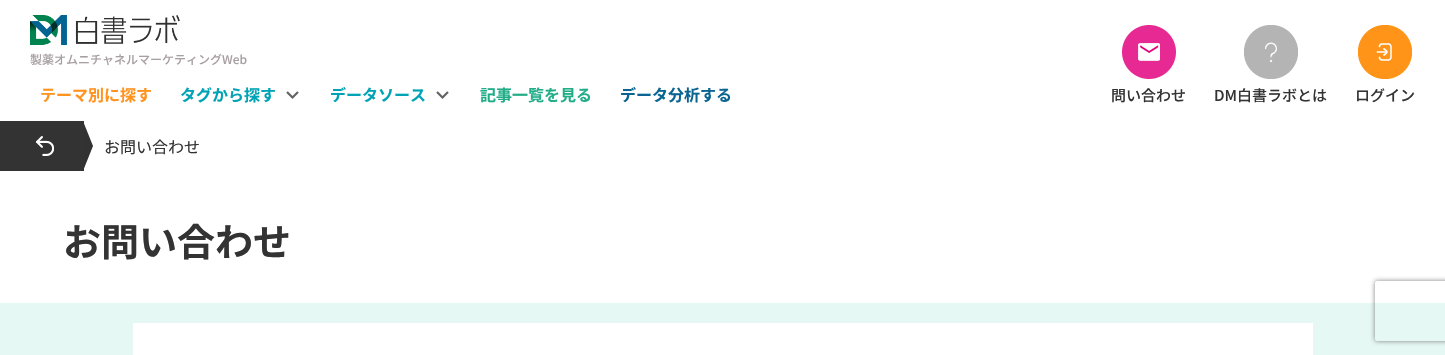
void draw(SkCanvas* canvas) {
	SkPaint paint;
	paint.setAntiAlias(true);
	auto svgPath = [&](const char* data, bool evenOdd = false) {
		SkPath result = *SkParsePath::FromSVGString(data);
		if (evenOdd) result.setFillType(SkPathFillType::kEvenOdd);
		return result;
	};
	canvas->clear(0xffffffff);
	canvas->drawImageRect(SkImages::DeferredFromEncodedData(SkData::MakeFromFileName("img1.png")), SkRect::MakeXYWH(30, 15, 150, 30), SkSamplingOptions());
	SkFont f1(fontMgr->matchFamilyStyle("Noto Sans JP", SkFontStyle(500, SkFontStyle::kNormal_Width, SkFontStyle::kUpright_Slant)), 12);
	f1.setSubpixel(true);
	paint.setColor(0xffa89fa3);
	canvas->drawString("製薬オムニチャネルマーケティングWeb", 30, 64, f1, paint);
	SkFont f2(fontMgr->matchFamilyStyle("Noto Sans JP", SkFontStyle::Bold()), 16);
	f2.setSubpixel(true);
	paint.setColor(0xffff931e);
	canvas->drawString("テーマ別に探す", 40, 101, f2, paint);
	paint.setColor(0xff00a3b5);
	canvas->drawString("タグから探す", 180, 101, f2, paint);
	paint.setStroke(true);
	paint.setStrokeWidth(2.2);
	paint.setColor(0xff636363);
	canvas->drawPath(svgPath("M298 92L292.5 97.5L287 92"), paint);
	paint.setStroke(false);
	paint.setColor(0xff00a3b5);
	canvas->drawString("データソース", 330, 101, f2, paint);
	paint.setStroke(true);
	paint.setColor(0xff636363);
	canvas->drawPath(svgPath("M448 92L442.5 97.5L437 92"), paint);
	paint.setStroke(false);
	paint.setColor(0xff21ad88);
	canvas->drawString("記事一覧を見る", 480, 101, f2, paint);
	paint.setColor(0xff0a6491);
	canvas->drawString("データ分析する", 620, 101, f2, paint);
	canvas->drawImageRect(SkImages::DeferredFromEncodedData(SkData::MakeFromFileName("img2.png")), SkRect::MakeXYWH(1122, 25, 54, 54), SkSamplingOptions());
	SkFont f3(fontMgr->matchFamilyStyle("Noto Sans JP", SkFontStyle(500, SkFontStyle::kNormal_Width, SkFontStyle::kUpright_Slant)), 15);
	f3.setSubpixel(true);
	paint.setColor(0xff333333);
	canvas->drawString("問い合わせ", 1111, 101, f3, paint);
	canvas->drawImageRect(SkImages::DeferredFromEncodedData(SkData::MakeFromFileName("img3.png")), SkRect::MakeXYWH(1244, 25, 54, 54), SkSamplingOptions());
	canvas->drawString("DM白書ラボとは", 1214, 101, f3, paint);
	canvas->drawImageRect(SkImages::DeferredFromEncodedData(SkData::MakeFromFileName("img4.png")), SkRect::MakeXYWH(1358, 25, 54, 54), SkSamplingOptions());
	canvas->drawString("ログイン", 1355, 101, f3, paint);
	canvas->drawRect(SkRect::MakeXYWH(0, 121, 84, 50), paint);
	canvas->drawImageRect(SkImages::DeferredFromEncodedData(SkData::MakeFromFileName("img5.png")), SkRect::MakeXYWH(36, 136, 18, 20), SkSamplingOptions());
	paint.setColor(0xff323232);
	canvas->drawPath(svgPath("M83 121L93 146L83 171Z"), paint);
	SkFont f4(fontMgr->matchFamilyStyle("Noto Sans JP", SkFontStyle::Normal()), 16);
	f4.setSubpixel(true);
	paint.setColor(0xff333333);
	canvas->drawString("お問い合わせ", 104, 153, f4, paint);
	SkFont f5(fontMgr->matchFamilyStyle("Noto Sans JP", SkFontStyle::Bold()), 38);
	f5.setSubpixel(true);
	canvas->drawString("お問い合わせ", 63, 256, f5, paint);
	paint.setColor(0xffe5f8f3);
	canvas->drawRect(SkRect::MakeXYWH(0, 303, 1445, 52), paint);
	paint.setColor(0xffffffff);
	canvas->drawRect(SkRect::MakeXYWH(133, 323, 1180, 32), paint);
	canvas->save();
	canvas->clipPath(svgPath("M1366 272H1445V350H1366ZM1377 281H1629C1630 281 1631 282 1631 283V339C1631 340 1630 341 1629 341H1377C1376 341 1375 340 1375 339V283C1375 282 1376 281 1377 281Z", true), true);
	paint.setColor(0xff808080);
	paint.setMaskFilter(SkMaskFilter::MakeBlur(kNormal_SkBlurStyle, 2.5));
	canvas->drawRoundRect(SkRect::MakeXYWH(1375, 281, 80, 60), 2, 2, paint);
	paint.setMaskFilter(nullptr);
	canvas->restore();
}
